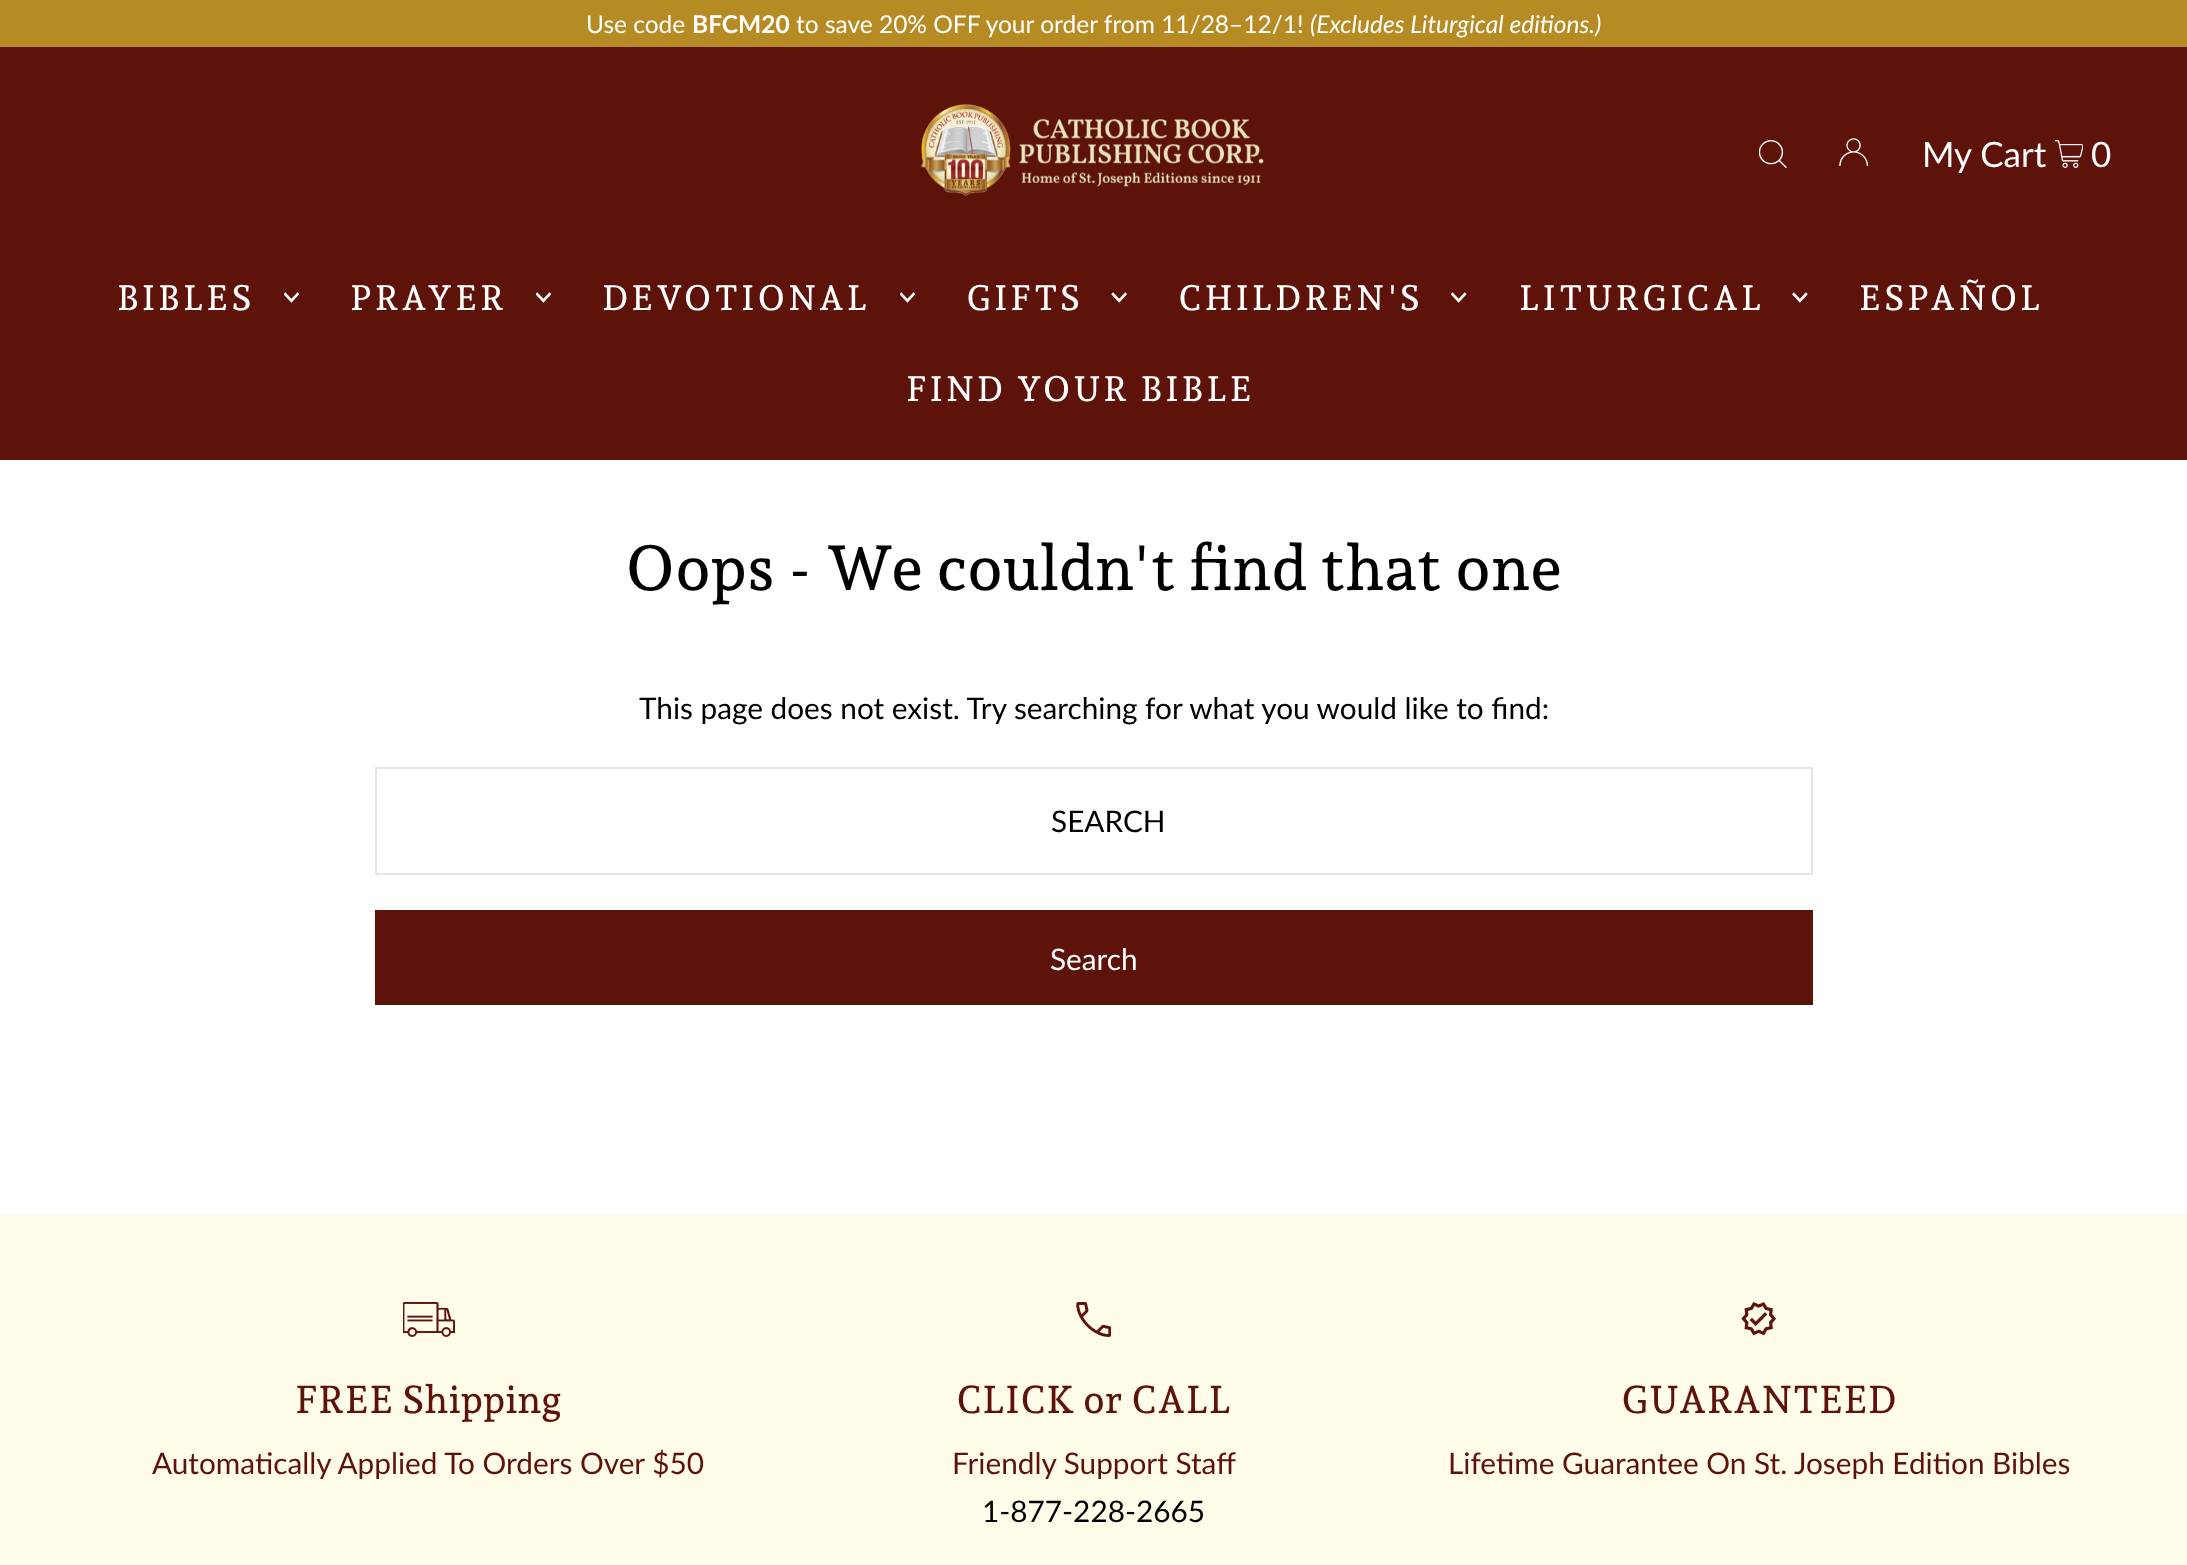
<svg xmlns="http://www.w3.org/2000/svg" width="2187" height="1565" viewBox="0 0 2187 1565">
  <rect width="100%" height="100%" fill="#fff"/>
  <path d="M0 0h2187v47H0z" fill="#b68b24"/>
  <path d="M0 47h2187v413H0z" fill="#5e130a"/>
  <image x="921" y="104" width="343" height="92" href="img/1.png"/>
  <image x="1759" y="140" width="28" height="28" href="img/2.png"/>
  <image x="1839" y="138" width="30" height="28" href="img/3.png"/>
  <image x="2055" y="140" width="28" height="28" href="img/4.png"/>
  <image x="284" y="292" width="15" height="11" href="img/5.png"/>
  <image x="536" y="292" width="15" height="11" href="img/5.png"/>
  <image x="900" y="292" width="15" height="11" href="img/5.png"/>
  <image x="1111" y="292" width="16" height="11" href="img/6.png"/>
  <image x="1451" y="292" width="16" height="11" href="img/7.png"/>
  <image x="1792" y="292" width="16" height="11" href="img/8.png"/>
  <path d="M376 768h1436v106H376z" fill="none" stroke="#e5e5e5" stroke-width="2"/>
  <path d="M375 910h1438v95H375z" fill="#5e130a"/>
  <path d="M0 1215h2187v350H0z" fill="#fffce9"/>
  <image x="403" y="1302" width="52" height="35" href="img/9.png"/>
  <image x="1076" y="1302" width="35" height="35" href="img/10.png"/>
  <image x="1741" y="1302" width="36" height="34" href="img/11.png"/>
  <text x="586" y="33" font-family="Lato" font-size="24.5" fill="#fff">Use code</text>
  <text x="692" y="33" font-family="Lato" font-size="24.5" font-weight="bold" fill="#fff">BFCM20</text>
  <text x="796" y="33" font-family="Lato" font-size="24.5" fill="#fff">to save 20% OFF your order from 11/28–12/1!</text>
  <text x="1310" y="33" font-family="Lato" font-size="24.5" font-style="italic" fill="#fff">(Excludes Liturgical editions.)</text>
  <g font-family="Lato" font-size="35" fill="#fff">
    <text x="1922" y="167">My Cart</text>
    <text x="2091" y="167">0</text>
  </g>
  <g font-family="Andada Pro" font-size="35" font-weight="500" letter-spacing="2.6" fill="#fff">
    <text x="117" y="310">BIBLES</text>
    <text x="350" y="310">PRAYER</text>
    <text x="602" y="310">DEVOTIONAL</text>
    <text x="966" y="310">GIFTS</text>
    <text x="1178" y="310">CHILDREN'S</text>
    <text x="1519" y="310">LITURGICAL</text>
    <text x="1859" y="310">ESPAÑOL</text>
    <text x="906" y="401">FIND YOUR BIBLE</text>
  </g>
  <text x="625" y="590" font-family="Andada Pro" font-size="63" font-weight="500" fill="#000">Oops - We couldn't find that one</text>
  <g font-family="Lato" font-size="29.75" fill="#000">
    <text x="639" y="719">This page does not exist. Try searching for what you would like to find:</text>
    <text x="1051" y="832">SEARCH</text>
  </g>
  <text x="1050" y="970" font-family="Lato" font-size="29.75" fill="#fff">Search</text>
  <text x="295" y="1413" font-family="Andada Pro" font-size="38.5" font-weight="500" fill="#5e130a">FREE Shipping</text>
  <text x="152" y="1474" font-family="Lato" font-size="29.75" fill="#5e130a">Automatically Applied To Orders Over $50</text>
  <text x="956" y="1413" font-family="Andada Pro" font-size="38.5" font-weight="500" fill="#5e130a">CLICK or CALL</text>
  <text x="952" y="1474" font-family="Lato" font-size="29.75" fill="#5e130a">Friendly Support Staff</text>
  <text x="982" y="1522" font-family="Lato" font-size="29.75" fill="#000">1-877-228-2665</text>
  <text x="1621" y="1413" font-family="Andada Pro" font-size="38.5" font-weight="500" fill="#5e130a">GUARANTEED</text>
  <text x="1448" y="1474" font-family="Lato" font-size="29.75" fill="#5e130a">Lifetime Guarantee On St. Joseph Edition Bibles</text>
</svg>
